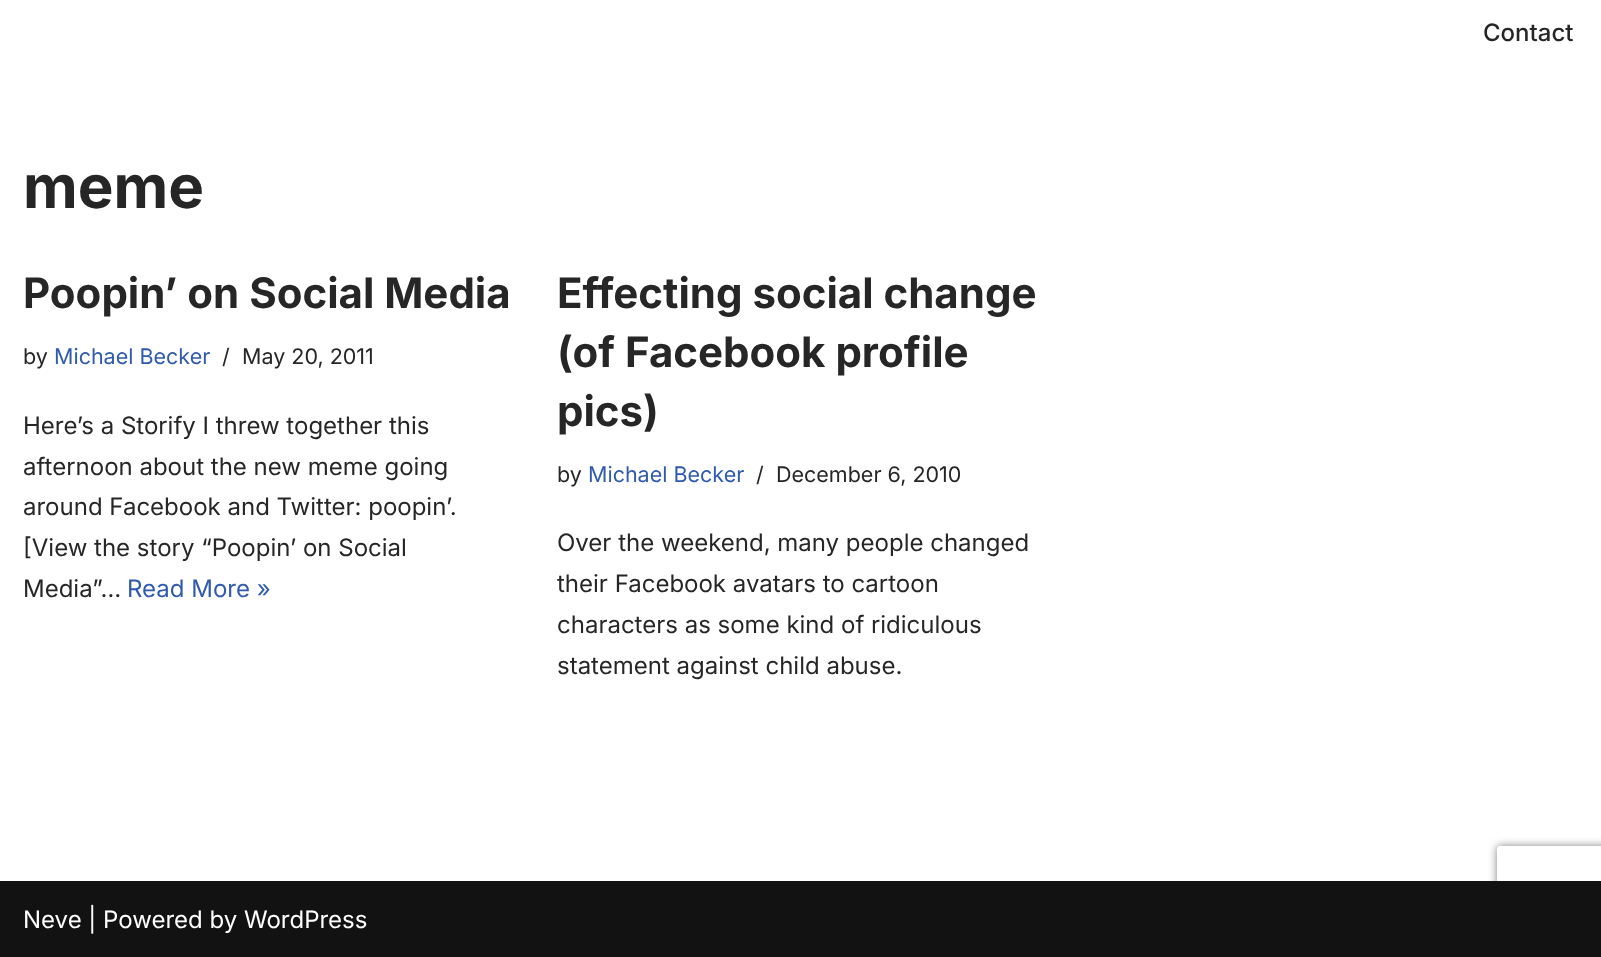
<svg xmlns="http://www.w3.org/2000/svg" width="1601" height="957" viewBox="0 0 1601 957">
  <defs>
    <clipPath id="clip1"><path d="M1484 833H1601V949H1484ZM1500 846H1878C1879.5 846 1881 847.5 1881 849V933C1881 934.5 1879.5 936 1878 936H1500C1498.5 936 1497 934.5 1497 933V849C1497 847.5 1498.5 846 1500 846Z" clip-rule="evenodd"/></clipPath>
  </defs>
  <rect width="100%" height="100%" fill="#fff"/>
  <g clip-path="url(#clip1)">
    <rect x="1497" y="846" width="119" height="90" rx="3" fill="#808080" filter="blur(4px)"/>
  </g>
  <path d="M0 881h1601v76H0z" fill="#121212"/>
  <text x="1483" y="41" font-family="Inter" font-size="24" font-weight="500" fill="#272626">Contact</text>
  <text x="23" y="208" font-family="Inter" font-size="60" font-weight="bold" fill="#272626">meme</text>
  <text x="23" y="308" font-family="Inter" font-size="42" font-weight="bold" fill="#272626">Poopin’ on Social Media</text>
  <text x="23" y="364" font-family="Inter" font-size="21.5" fill="#272626">by</text>
  <text x="54" y="364" font-family="Inter" font-size="21.5" fill="#2f5aae">Michael Becker</text>
  <g font-family="Inter" font-size="21.5" fill="#272626">
    <text x="222" y="364">/</text>
    <text x="242" y="364">May 20, 2011</text>
  </g>
  <g font-family="Inter" font-size="24" fill="#272626">
    <text x="23" y="434">Here’s a Storify I threw together this</text>
    <text x="23" y="475">afternoon about the new meme going</text>
    <text x="23" y="515">around Facebook and Twitter: poopin’.</text>
    <text x="23" y="556">[View the story “Poopin’ on Social</text>
    <text x="23" y="597">Media”…</text>
  </g>
  <text x="127" y="597" font-family="Inter" font-size="24" fill="#2f5aae">Read More »</text>
  <g font-family="Inter" font-size="42" font-weight="bold" fill="#272626">
    <text x="557" y="308">Effecting social change</text>
    <text x="557" y="367">(of Facebook profile</text>
    <text x="557" y="426">pics)</text>
  </g>
  <text x="557" y="482" font-family="Inter" font-size="21.5" fill="#272626">by</text>
  <text x="588" y="482" font-family="Inter" font-size="21.5" fill="#2f5aae">Michael Becker</text>
  <g font-family="Inter" font-size="21.5" fill="#272626">
    <text x="756" y="482">/</text>
    <text x="776" y="482">December 6, 2010</text>
  </g>
  <g font-family="Inter" font-size="24" fill="#272626">
    <text x="557" y="551">Over the weekend, many people changed</text>
    <text x="557" y="592">their Facebook avatars to cartoon</text>
    <text x="557" y="633">characters as some kind of ridiculous</text>
    <text x="557" y="674">statement against child abuse.</text>
  </g>
  <text x="23" y="928" font-family="Inter" font-size="24" fill="#fff">Neve | Powered by WordPress</text>
</svg>
